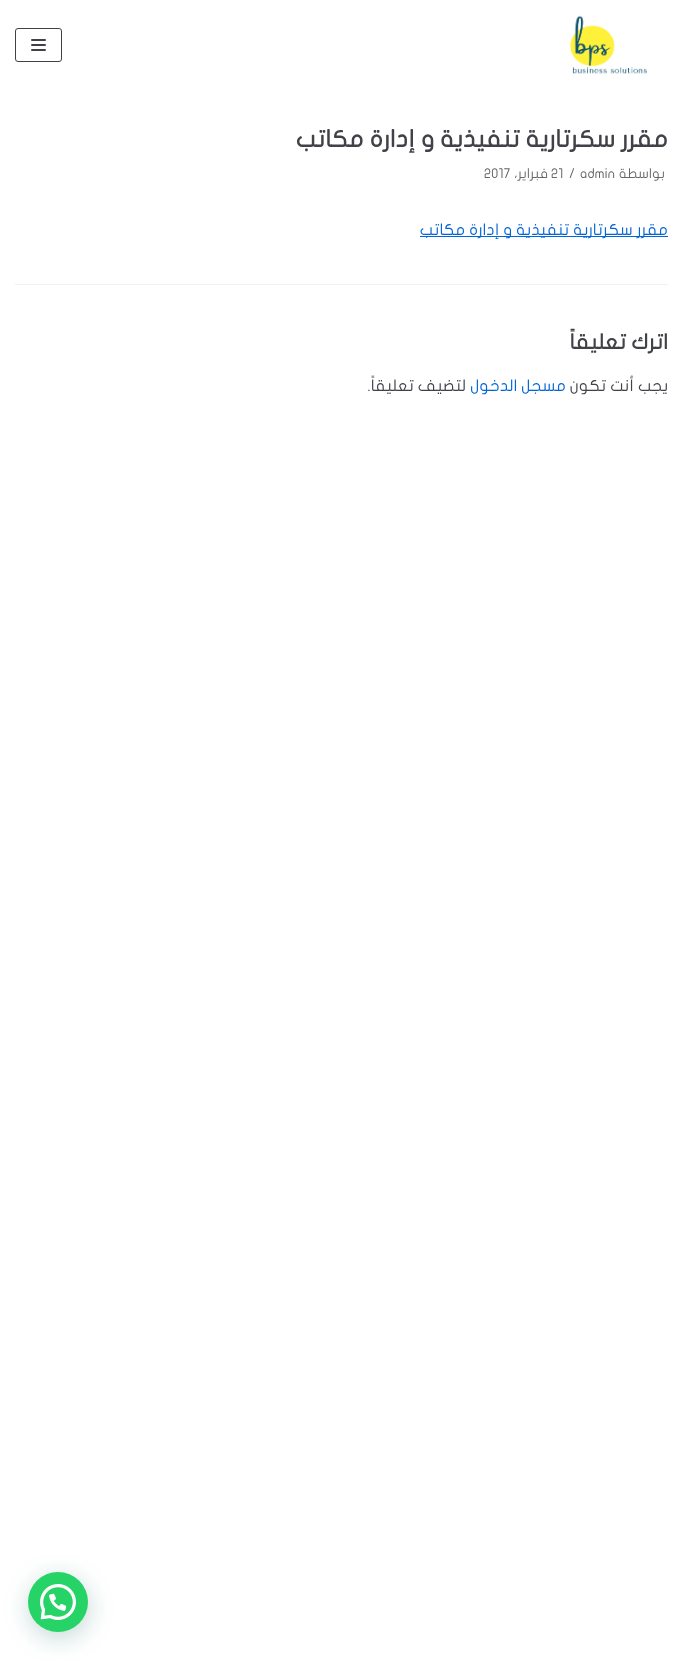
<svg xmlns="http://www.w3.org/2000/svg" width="683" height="1660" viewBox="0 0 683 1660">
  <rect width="100%" height="100%" fill="#fff"/>
  <image x="570" y="15" width="77" height="59" href="img/1.png"/>
  <rect x="15.5" y="28.5" width="46" height="33" rx="2.5" fill="none" stroke="#404248"/>
  <rect x="31" y="39" width="15" height="2" rx="1" fill="#404248"/>
  <rect x="31" y="44" width="15" height="2" rx="1" fill="#404248"/>
  <rect x="31" y="49" width="15" height="2" rx="1" fill="#404248"/>
  <path d="M420 236h248v1H420z" fill="#0366d6"/>
  <path d="M15 284h653v1H15z" fill="#f0f0f0"/>
  <rect x="29" y="1578" width="60" height="60" rx="30" fill="#075e543d" filter="blur(12px)"/>
  <circle cx="58" cy="1602" r="30" fill="#25d366"/>
  <image x="40" y="1584" width="36" height="36" href="img/2.png"/>
  <text x="668" y="147" font-family="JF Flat" font-size="24" font-weight="bold" direction="rtl" fill="#404248">مقرر سكرتارية تنفيذية و إدارة مكاتب</text>
  <text x="665" y="178" font-family="JF Flat" font-size="13.5" direction="rtl" fill="#676767">بواسطة</text>
  <g font-family="JF Flat" font-size="13.5" fill="#676767">
    <text x="580" y="178">admin</text>
    <text x="569" y="178">/</text>
    <text x="551" y="178">21</text>
  </g>
  <text x="548" y="178" font-family="JF Flat" font-size="13.5" direction="rtl" fill="#676767">فبراير،</text>
  <text x="484" y="178" font-family="JF Flat" font-size="13.5" fill="#676767">2017</text>
  <text x="668" y="235" font-family="JF Flat" font-size="16" direction="rtl" fill="#0366d6">مقرر سكرتارية تنفيذية و إدارة مكاتب</text>
  <text x="668" y="349" font-family="JF Flat" font-size="21" font-weight="bold" direction="rtl" fill="#404248">اترك تعليقاً</text>
  <text x="668" y="391" font-family="JF Flat" font-size="16" direction="rtl" fill="#404248">يجب أنت تكون</text>
  <text x="566" y="391" font-family="JF Flat" font-size="16" direction="rtl" fill="#0366d6">مسجل الدخول</text>
  <text x="466" y="391" font-family="JF Flat" font-size="16" direction="rtl" fill="#404248">لتضيف تعليقاً.</text>
</svg>
